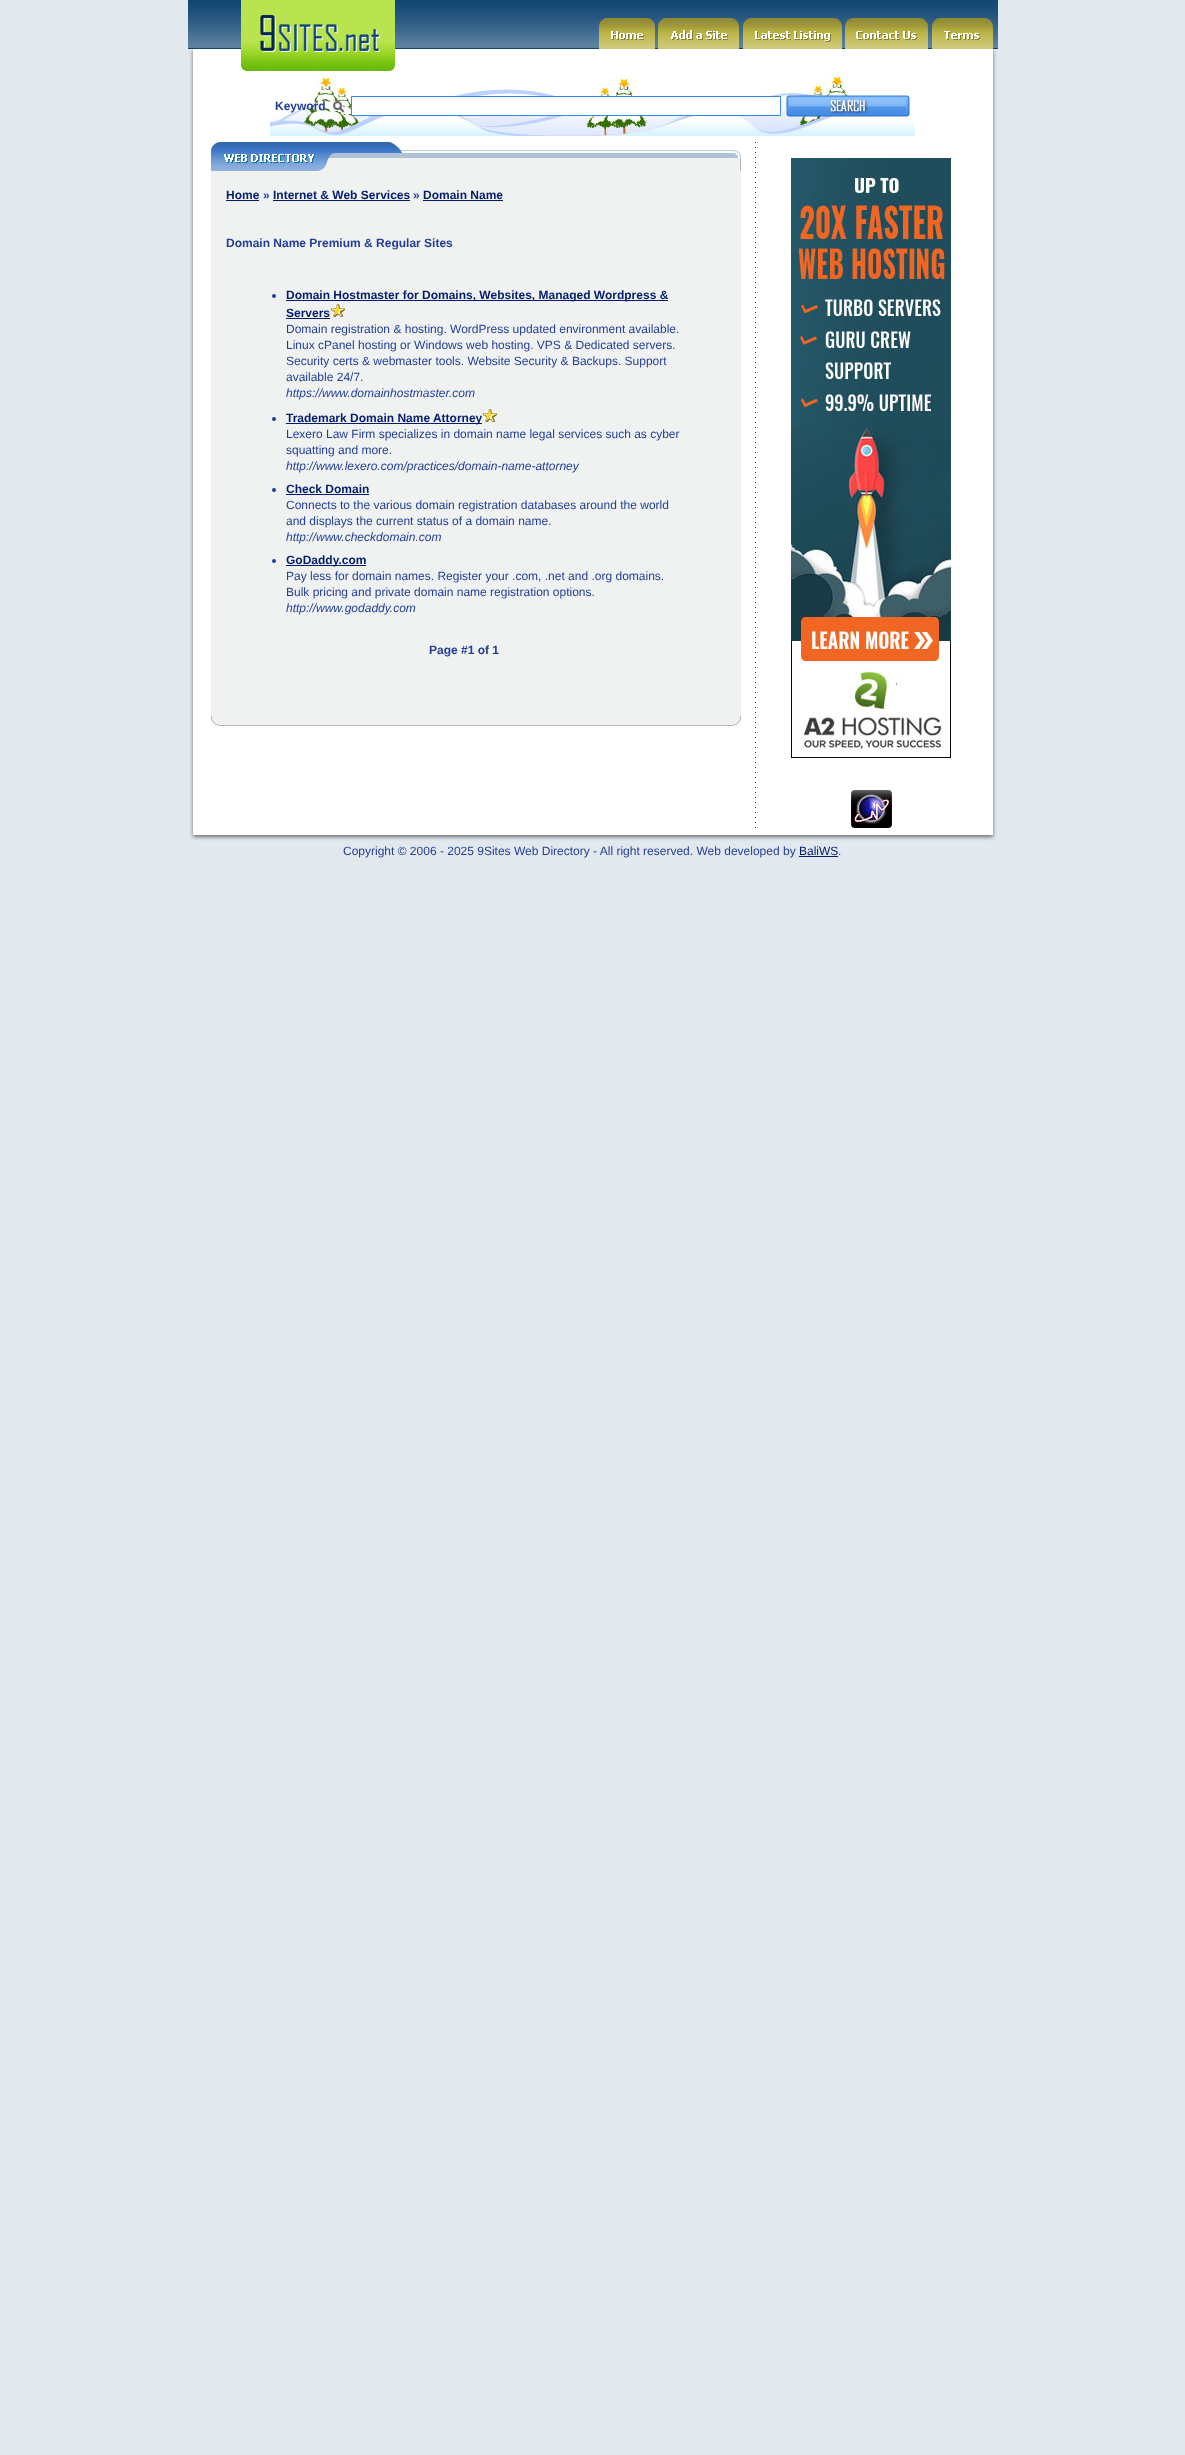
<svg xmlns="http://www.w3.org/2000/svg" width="1185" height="2455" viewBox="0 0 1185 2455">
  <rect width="100%" height="100%" fill="#e2e9ee"/>
  <image x="188" y="0" width="810" height="71" href="img/1.png"/>
  <image x="241" y="0" width="154" height="71" href="img/2.png"/>
  <image x="599" y="18" width="56" height="31" href="img/3.png"/>
  <image x="658" y="18" width="81" height="31" href="img/4.png"/>
  <image x="743" y="18" width="99" height="31" href="img/5.png"/>
  <image x="845" y="18" width="83" height="31" href="img/6.png"/>
  <image x="932" y="18" width="61" height="31" href="img/7.png"/>
  <image x="189" y="71" width="808" height="70" href="img/8.png"/>
  <image x="270" y="76" width="645" height="60" href="img/9.png"/>
  <image x="333" y="101" width="12" height="13" href="img/10.png"/>
  <path d="M351.5 96.5h429v19H351.5z" fill="#fff" stroke="#3c87e1"/>
  <image x="786" y="95" width="124" height="22" href="img/11.png"/>
  <image x="189" y="141" width="808" height="687" href="img/12.png"/>
  <image x="211" y="142" width="530" height="29" href="img/13.png"/>
  <path d="M211 171h530v545H211z" fill="#f0f2f2"/>
  <path d="M226 200h33v1H226z" fill="#031c6c"/>
  <path d="M273 200h137v1H273z" fill="#031c6c"/>
  <path d="M423 200h80v1H423z" fill="#031c6c"/>
  <circle cx="274" cy="296" r="2" fill="#223d97"/>
  <path d="M286 300h382v1H286z" fill="#031c6c"/>
  <path d="M286 318h44v1H286z" fill="#031c6c"/>
  <image x="330" y="303" width="15" height="14" href="img/14.png"/>
  <circle cx="274" cy="419" r="2" fill="#223d97"/>
  <path d="M286 423h196v1H286z" fill="#031c6c"/>
  <circle cx="274" cy="490" r="2" fill="#223d97"/>
  <path d="M286 494h83v1H286z" fill="#031c6c"/>
  <circle cx="274" cy="561" r="2" fill="#223d97"/>
  <path d="M286 565h80v1H286z" fill="#031c6c"/>
  <image x="211" y="716" width="530" height="10" href="img/16.png"/>
  <image x="755" y="142" width="1" height="686" href="img/17.png"/>
  <image x="791" y="158" width="160" height="600" href="img/18.png"/>
  <image x="851" y="790" width="41" height="38" href="img/19.png"/>
  <image x="189" y="828" width="808" height="13" href="img/20.png"/>
  <path d="M799 856h39v1H799z" fill="#031c6c"/>
  <text x="275" y="110" font-family="Liberation Sans" font-size="12" font-weight="bold" fill="#223d97">Keyword</text>
  <text x="226" y="199" font-family="Liberation Sans" font-size="12" font-weight="bold" fill="#031c6c">Home</text>
  <text x="263" y="199" font-family="Liberation Sans" font-size="12" font-weight="bold" fill="#223d97">»</text>
  <text x="273" y="199" font-family="Liberation Sans" font-size="12" font-weight="bold" fill="#031c6c">Internet &amp; Web Services</text>
  <text x="413" y="199" font-family="Liberation Sans" font-size="12" font-weight="bold" fill="#223d97">»</text>
  <text x="423" y="199" font-family="Liberation Sans" font-size="12" font-weight="bold" fill="#031c6c">Domain Name</text>
  <text x="226" y="247" font-family="Liberation Sans" font-size="12" font-weight="bold" fill="#223d97">Domain Name Premium &amp; Regular Sites</text>
  <g font-family="Liberation Sans" font-size="12" font-weight="bold" fill="#031c6c">
    <text x="286" y="299">Domain Hostmaster for Domains, Websites, Managed Wordpress &amp;</text>
    <text x="286" y="317">Servers</text>
  </g>
  <g font-family="Liberation Sans" font-size="12" fill="#223d97">
    <text x="286" y="333">Domain registration &amp; hosting. WordPress updated environment available.</text>
    <text x="286" y="349">Linux cPanel hosting or Windows web hosting. VPS &amp; Dedicated servers.</text>
    <text x="286" y="365">Security certs &amp; webmaster tools. Website Security &amp; Backups. Support</text>
    <text x="286" y="381">available 24/7.</text>
  </g>
  <text x="286" y="397" font-family="Liberation Sans" font-size="12" font-style="italic" fill="#223d97">https://www.domainhostmaster.com</text>
  <text x="286" y="422" font-family="Liberation Sans" font-size="12" font-weight="bold" fill="#031c6c">Trademark Domain Name Attorney</text>
  <image x="482" y="408" width="15" height="14" href="img/15.png"/>
  <g font-family="Liberation Sans" font-size="12" fill="#223d97">
    <text x="286" y="438">Lexero Law Firm specializes in domain name legal services such as cyber</text>
    <text x="286" y="454">squatting and more.</text>
  </g>
  <text x="286" y="470" font-family="Liberation Sans" font-size="12" font-style="italic" fill="#223d97">http://www.lexero.com/practices/domain-name-attorney</text>
  <text x="286" y="493" font-family="Liberation Sans" font-size="12" font-weight="bold" fill="#031c6c">Check Domain</text>
  <g font-family="Liberation Sans" font-size="12" fill="#223d97">
    <text x="286" y="509">Connects to the various domain registration databases around the world</text>
    <text x="286" y="525">and displays the current status of a domain name.</text>
  </g>
  <text x="286" y="541" font-family="Liberation Sans" font-size="12" font-style="italic" fill="#223d97">http://www.checkdomain.com</text>
  <text x="286" y="564" font-family="Liberation Sans" font-size="12" font-weight="bold" fill="#031c6c">GoDaddy.com</text>
  <g font-family="Liberation Sans" font-size="12" fill="#223d97">
    <text x="286" y="580">Pay less for domain names. Register your .com, .net and .org domains.</text>
    <text x="286" y="596">Bulk pricing and private domain name registration options.</text>
  </g>
  <text x="286" y="612" font-family="Liberation Sans" font-size="12" font-style="italic" fill="#223d97">http://www.godaddy.com</text>
  <text x="429" y="654" font-family="Liberation Sans" font-size="12" font-weight="bold" fill="#223d97">Page #1 of 1</text>
  <text x="343" y="855" font-family="Liberation Sans" font-size="12" fill="#223d97">Copyright © 2006 - 2025 9Sites Web Directory - All right reserved. Web developed by</text>
  <text x="799" y="855" font-family="Liberation Sans" font-size="12" fill="#031c6c">BaliWS</text>
  <text x="838" y="855" font-family="Liberation Sans" font-size="12" fill="#223d97">.</text>
</svg>
